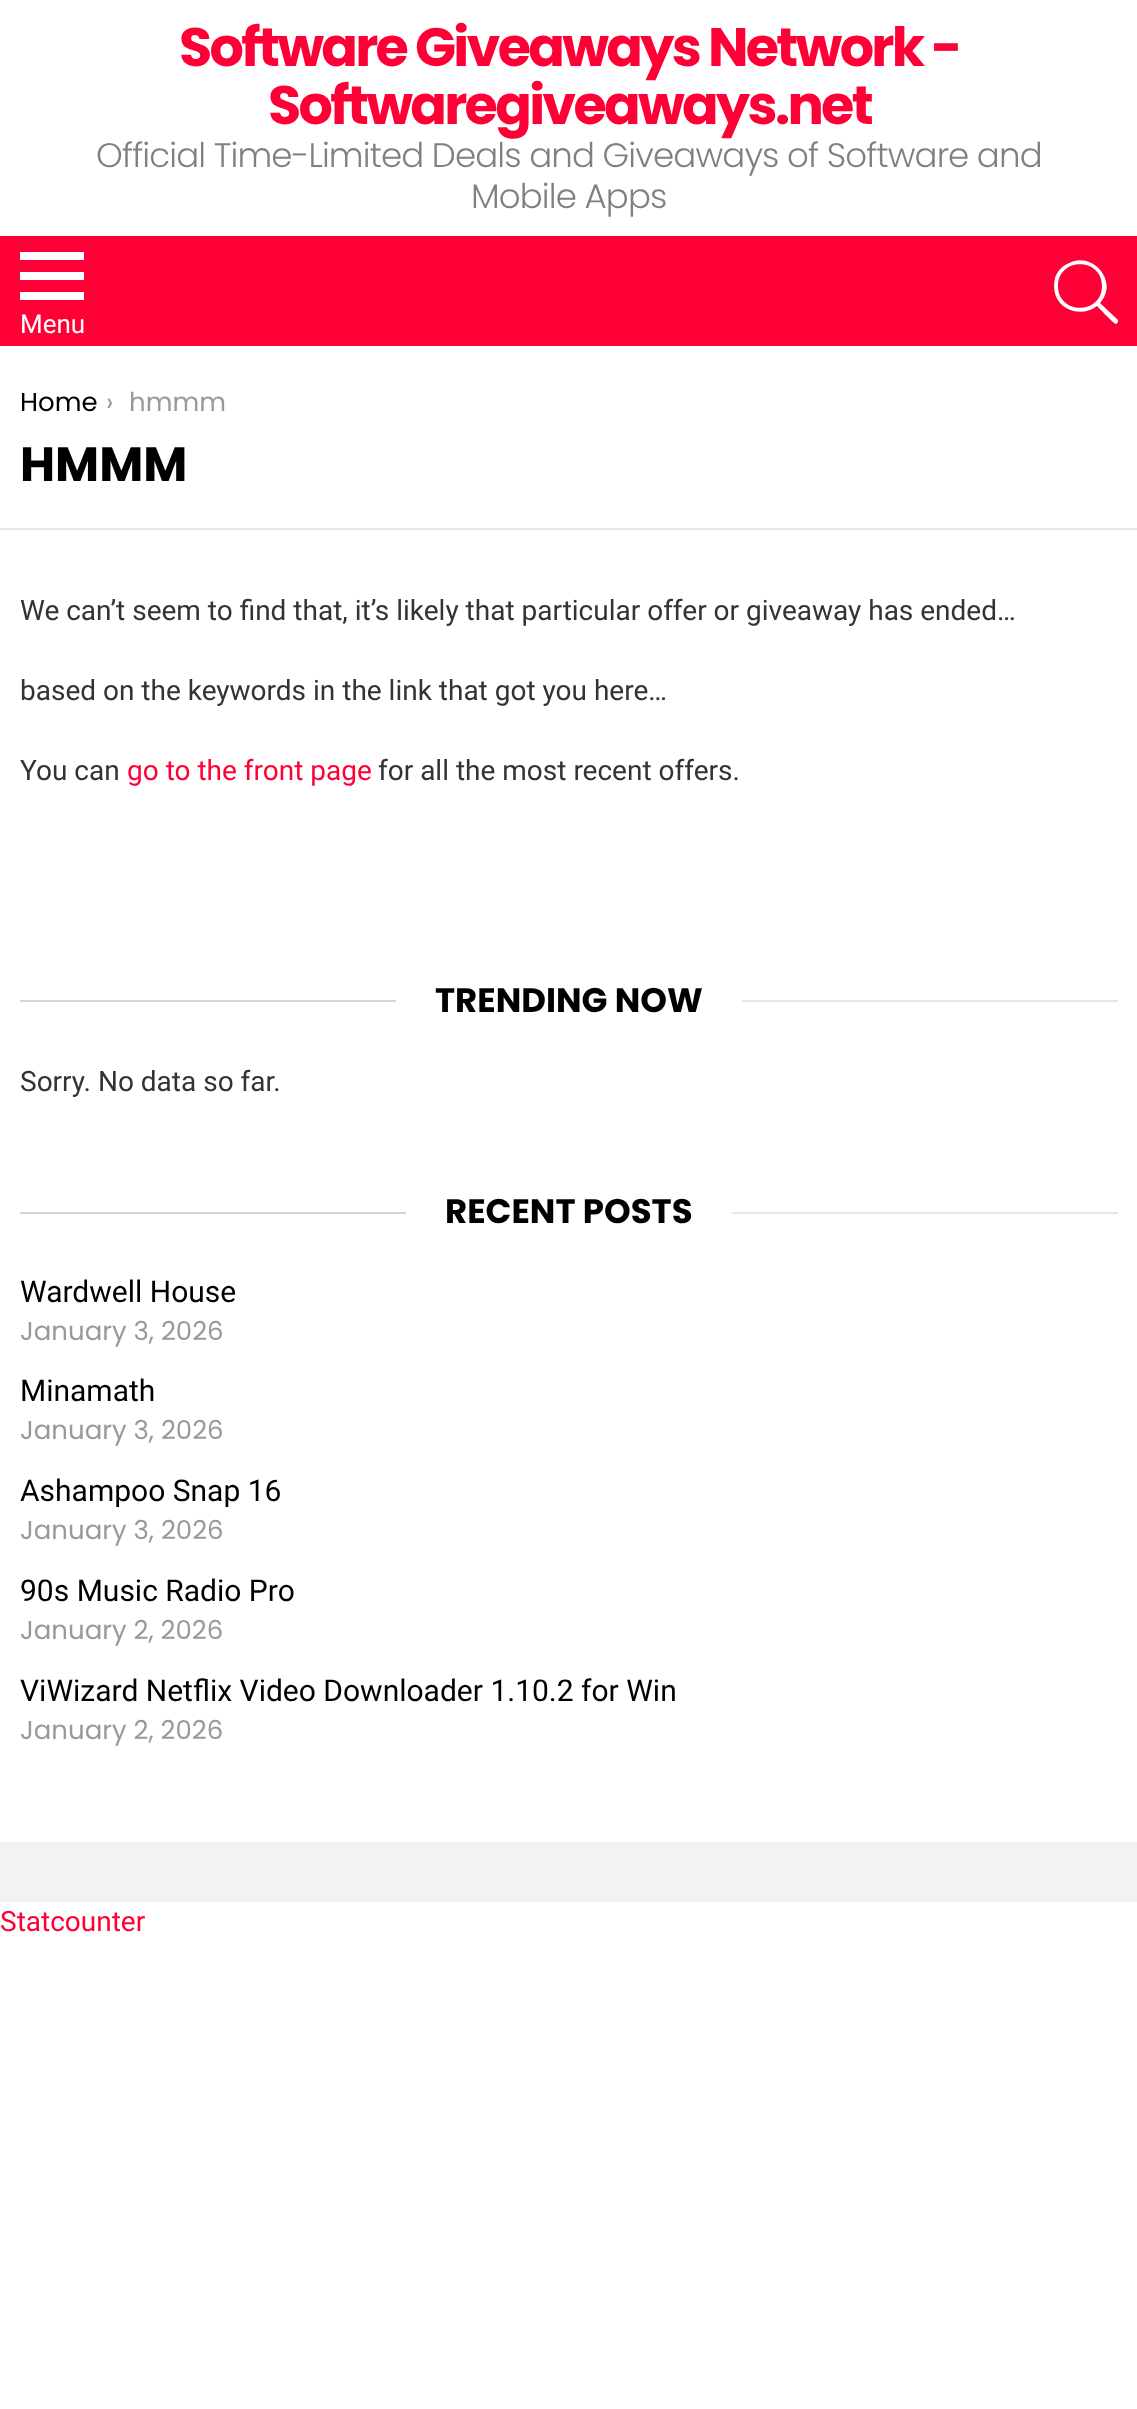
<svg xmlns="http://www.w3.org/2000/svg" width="1137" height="2409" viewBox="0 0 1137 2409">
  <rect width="100%" height="100%" fill="#fff"/>
  <path d="M0 236h1137v110H0z" fill="#ff0036"/>
  <path d="M20 252H84V260H20ZM20 272H84V280H20ZM20 292H84V300H20Z" fill="#fff"/>
  <path d="M1118 320L1100 303C1120 281 1091 249 1067 264C1061 267 1057 272 1055 278C1053 287 1054 296 1060 303C1069 313 1086 315 1097 306C1099 308 1114 324 1116 324C1118 323 1118 322 1118 320ZM1058 286C1058 257 1102 257 1102 286C1102 315 1058 315 1058 286Z" fill="#fff"/>
  <path d="M0 528h1137v2H0z" fill="#e6e6e6"/>
  <path d="M20 1000h376v2H20z" fill="#d4d4d4"/>
  <path d="M742 1000h376v2H742z" fill="#e6e6e6"/>
  <path d="M20 1212h386v2H20z" fill="#d4d4d4"/>
  <path d="M732 1212h386v2H732z" fill="#e6e6e6"/>
  <path d="M0 1842h1137v60H0z" fill="#f2f2f2"/>
  <g font-family="Poppins" font-size="54" font-weight="bold" letter-spacing="-2.7" fill="#ff0036">
    <text x="179" y="66">Software Giveaways Network -</text>
    <text x="268" y="124">Softwaregiveaways.net</text>
  </g>
  <g font-family="Poppins" font-size="34" font-weight="300" letter-spacing="-0.85" fill="#808080">
    <text x="96" y="167">Official Time-Limited Deals and Giveaways of Software and</text>
    <text x="471" y="208">Mobile Apps</text>
  </g>
  <text x="20" y="333" font-family="Roboto" font-size="26" fill="#fff">Menu</text>
  <text x="20" y="411" font-family="Poppins" font-size="26" fill="#000">Home</text>
  <g font-family="Poppins" font-size="26" fill="#999">
    <text x="106" y="411">›</text>
    <text x="129" y="411">hmmm</text>
  </g>
  <text x="20" y="481" font-family="Poppins" font-size="48" font-weight="bold" fill="#000">HMMM</text>
  <g font-family="Roboto" font-size="28" fill="#333">
    <text x="20" y="620">We can’t seem to find that, it’s likely that particular offer or giveaway has ended…</text>
    <text x="20" y="700">based on the keywords in the link that got you here…</text>
    <text x="20" y="780">You can</text>
  </g>
  <text x="127" y="780" font-family="Roboto" font-size="28" fill="#ff0036">go to the front page</text>
  <text x="378" y="780" font-family="Roboto" font-size="28" fill="#333">for all the most recent offers.</text>
  <text x="435" y="1012" font-family="Poppins" font-size="34" font-weight="bold" fill="#000">TRENDING NOW</text>
  <text x="20" y="1091" font-family="Roboto" font-size="28" fill="#333">Sorry. No data so far.</text>
  <text x="445" y="1223" font-family="Poppins" font-size="34" font-weight="bold" fill="#000">RECENT POSTS</text>
  <text x="20" y="1302" font-family="Roboto" font-size="30" fill="#000">Wardwell House</text>
  <text x="20" y="1340" font-family="Poppins" font-size="26" fill="#999">January 3, 2026</text>
  <text x="20" y="1401" font-family="Roboto" font-size="30" fill="#000">Minamath</text>
  <text x="20" y="1439" font-family="Poppins" font-size="26" fill="#999">January 3, 2026</text>
  <text x="20" y="1501" font-family="Roboto" font-size="30" fill="#000">Ashampoo Snap 16</text>
  <text x="20" y="1539" font-family="Poppins" font-size="26" fill="#999">January 3, 2026</text>
  <text x="20" y="1601" font-family="Roboto" font-size="30" fill="#000">90s Music Radio Pro</text>
  <text x="20" y="1639" font-family="Poppins" font-size="26" fill="#999">January 2, 2026</text>
  <text x="20" y="1701" font-family="Roboto" font-size="30" fill="#000">ViWizard Netflix Video Downloader 1.10.2 for Win</text>
  <text x="20" y="1739" font-family="Poppins" font-size="26" fill="#999">January 2, 2026</text>
  <text x="0" y="1931" font-family="Roboto" font-size="28" fill="#ff0036">Statcounter</text>
</svg>
